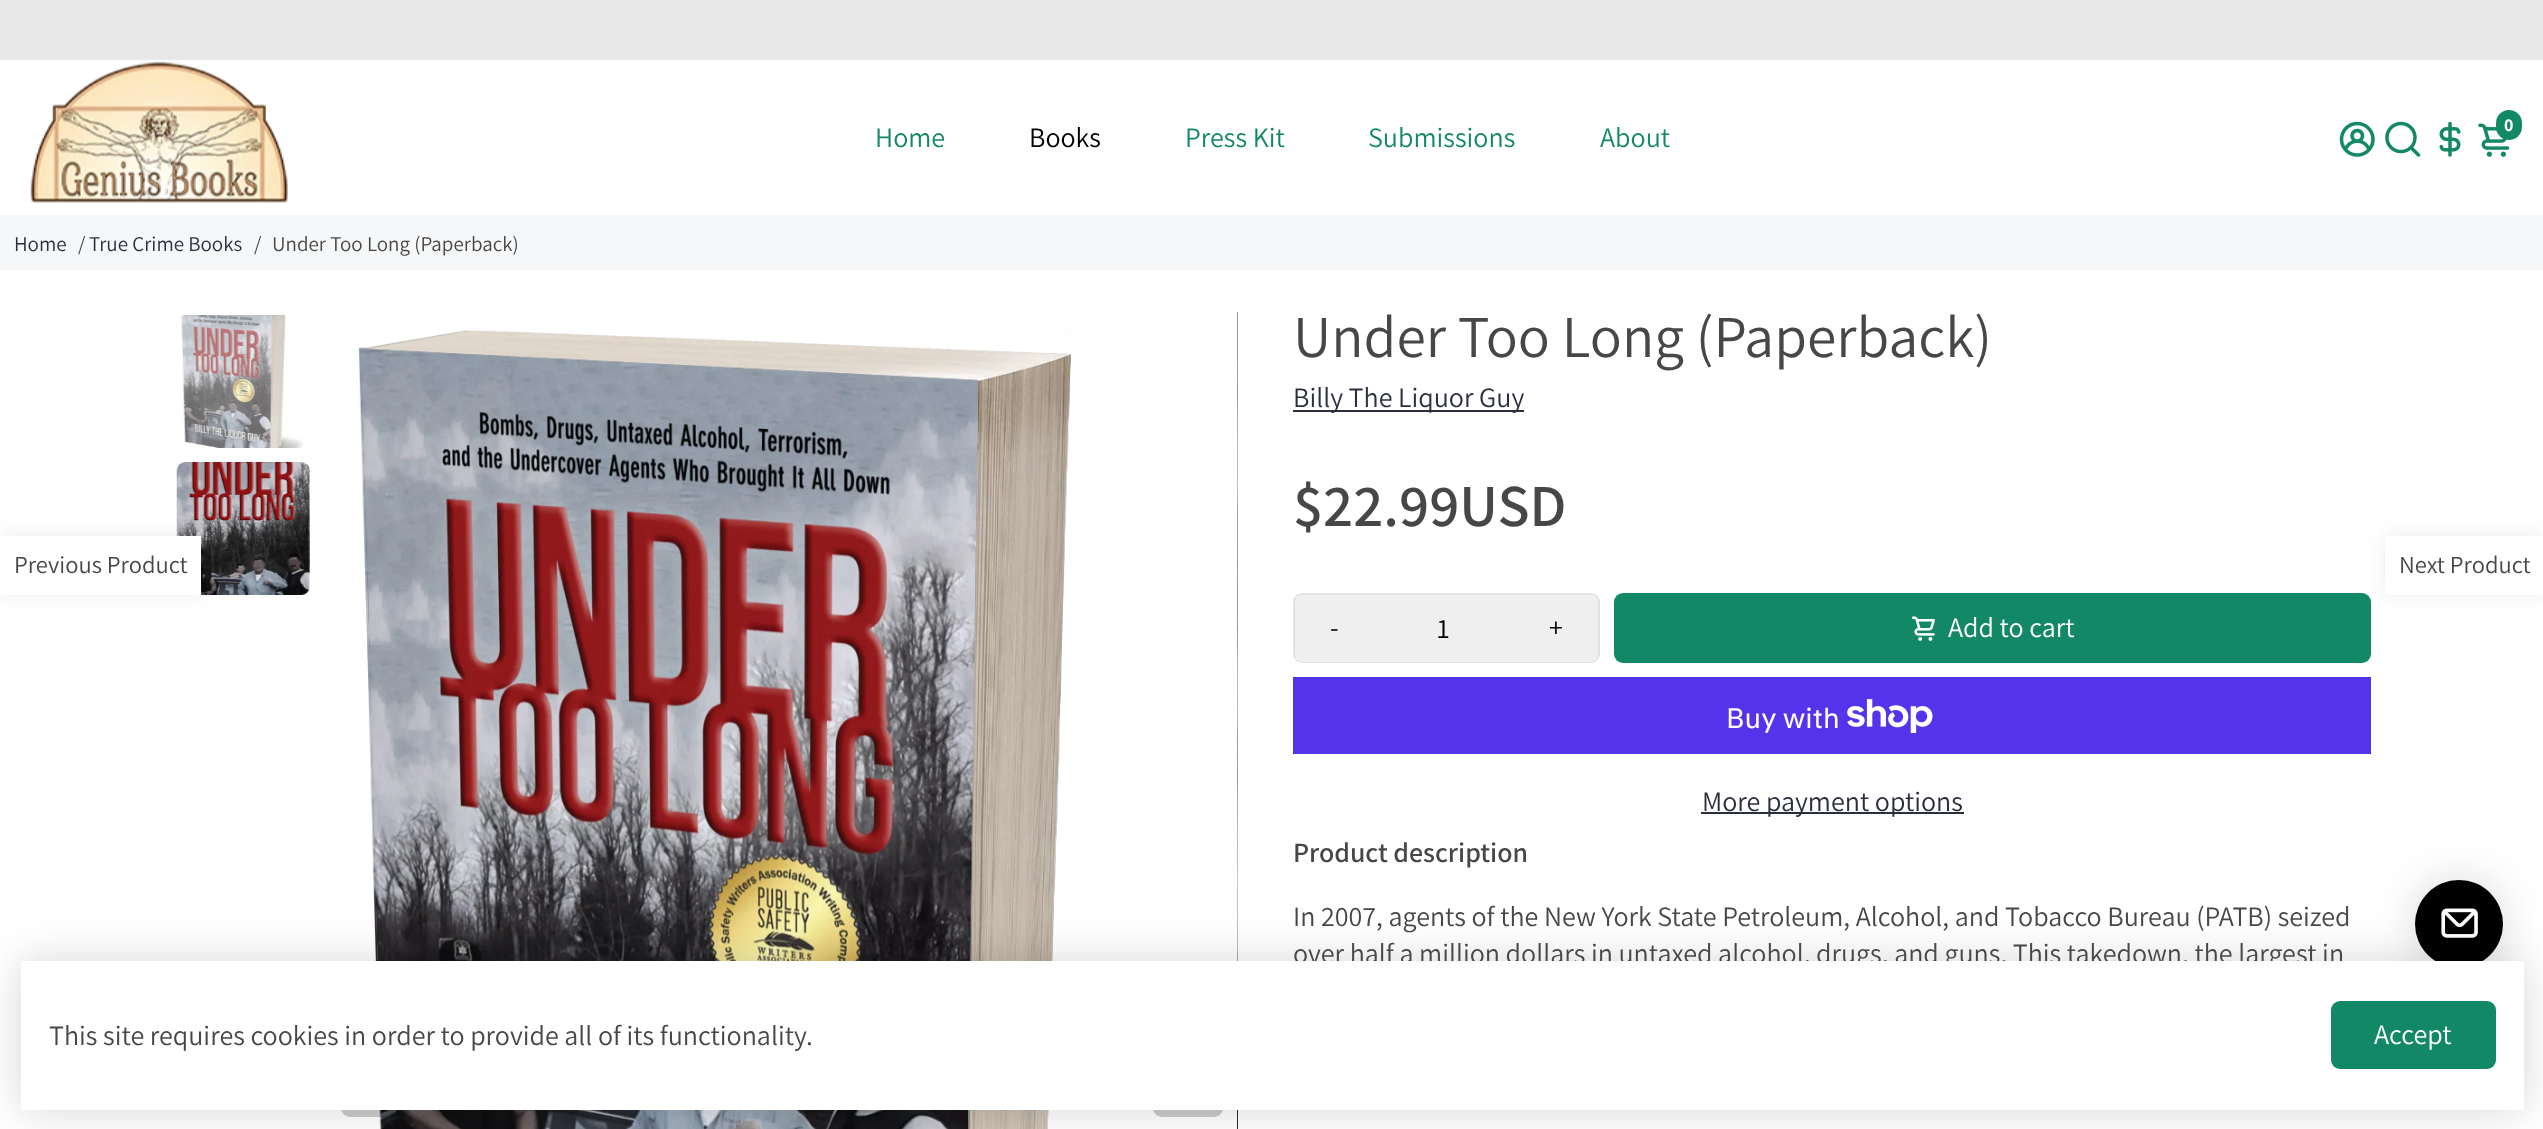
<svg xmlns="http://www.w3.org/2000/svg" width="2543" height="1129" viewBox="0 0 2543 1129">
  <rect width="100%" height="100%" fill="#fff"/>
  <path d="M0 0h2543v60H0z" fill="#e8e8e8"/>
  <image x="30" y="61" width="258" height="142" href="img/1.png"/>
  <image x="2339" y="121" width="36" height="36" href="img/2.png"/>
  <image x="2385" y="121" width="36" height="36" href="img/3.png"/>
  <image x="2439" y="121" width="22" height="36" href="img/4.png"/>
  <image x="2478" y="123" width="32" height="34" href="img/5.png"/>
  <rect x="2496" y="110" width="26" height="30" rx="13" fill="#138867"/>
  <path d="M0 215h2543v55H0z" fill="#f6f7f8"/>
  <image x="176" y="462" width="134" height="133" href="img/7.png"/>
  <path d="M0 536h201v59H0z" fill="#00000014" filter="blur(9px)"/>
  <path d="M0 536h201v59H0z" fill="#fff"/>
  <image x="181" y="315" width="122" height="133" href="img/6.png"/>
  <image x="358" y="330" width="713" height="799" href="img/8.png"/>
  <image x="1237" y="312" width="1" height="817" href="img/9.png"/>
  <rect x="341" y="1047" width="70" height="70" rx="9" fill="#00000033"/>
  <rect x="1153" y="1047" width="70" height="70" rx="9" fill="#ccc"/>
  <path d="M1293 410h231v2H1293z" fill="#2b2f3d"/>
  <rect x="1294" y="594" width="305" height="68" rx="8" fill="none" stroke="#e2e2e2" stroke-width="2"/>
  <path d="M1302 595H1374V662H1302C1298 662 1295 659 1295 655V602C1295 598 1298 595 1302 595Z" fill="#efefef"/>
  <path d="M1374 595h140v67H1374z" fill="#efefef"/>
  <path d="M1514 595H1591C1595 595 1598 598 1598 602V655C1598 659 1595 662 1591 662H1514Z" fill="#efefef"/>
  <rect x="1614" y="593" width="757" height="70" rx="9" fill="#138867"/>
  <image x="1912" y="616" width="23" height="25" href="img/10.png"/>
  <path d="M1293 677h1078v77H1293z" fill="#5433eb"/>
  <image x="1847" y="699" width="86" height="34" href="img/11.png"/>
  <path d="M1701 812h263v2H1701z" fill="#2b2f3d"/>
  <path d="M2385 536h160v59H2385z" fill="#00000014" filter="blur(9px)"/>
  <path d="M2385 536h158v59H2385z" fill="#fff"/>
  <rect x="2415" y="880" width="88" height="88" rx="44" fill="#00000026" filter="blur(22px)"/>
  <circle cx="2459" cy="924" r="44" fill="#000"/>
  <image x="2441" y="908" width="37" height="30" href="img/12.png"/>
  <path d="M21 961h2503v149H21z" fill="#00000029" filter="blur(21px)"/>
  <text x="2504" y="131" font-family="Assistant" font-size="18" font-weight="bold" fill="#fff">0</text>
  <text x="875" y="147" font-family="Assistant" font-size="28" fill="#138867">Home</text>
  <text x="1029" y="147" font-family="Assistant" font-size="28" fill="#000">Books</text>
  <g font-family="Assistant" font-size="28" fill="#138867">
    <text x="1185" y="147">Press Kit</text>
    <text x="1368" y="147">Submissions</text>
    <text x="1600" y="147">About</text>
  </g>
  <text x="14" y="251" font-family="Assistant" font-size="21" fill="#2b2f3d">Home</text>
  <text x="78" y="251" font-family="Assistant" font-size="21" fill="#474747">/</text>
  <text x="89" y="251" font-family="Assistant" font-size="21" fill="#2b2f3d">True Crime Books</text>
  <g font-family="Assistant" font-size="21" fill="#474747">
    <text x="254" y="251">/</text>
    <text x="272" y="251">Under Too Long (Paperback)</text>
  </g>
  <text x="14" y="573" font-family="Assistant" font-size="24.5" fill="#474747">Previous Product</text>
  <text x="1293" y="357" font-family="Assistant" font-size="59.5" fill="#474747">Under Too Long (Paperback)</text>
  <text x="1293" y="407" font-family="Assistant" font-size="28" fill="#2b2f3d">Billy The Liquor Guy</text>
  <text x="1293" y="526" font-family="Assistant" font-size="59.5" font-weight="600" fill="#474747">$22.99USD</text>
  <g font-family="Assistant" font-size="28" fill="#000">
    <text x="1330" y="637">-</text>
    <text x="1437" y="638">1</text>
    <text x="1549" y="637">+</text>
  </g>
  <text x="1948" y="637" font-family="Assistant" font-size="28" fill="#fff">Add to cart</text>
  <text x="1726" y="728" font-family="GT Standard" font-size="28" fill="#fff">Buy with</text>
  <text x="1702" y="811" font-family="Assistant" font-size="28" fill="#2b2f3d">More payment options</text>
  <text x="1293" y="862" font-family="Assistant" font-size="28" font-weight="600" fill="#474747">Product description</text>
  <g font-family="Assistant" font-size="28" fill="#474747">
    <text x="1293" y="926">In 2007, agents of the New York State Petroleum, Alcohol, and Tobacco Bureau (PATB) seized</text>
    <text x="1293" y="963">over half a million dollars in untaxed alcohol, drugs, and guns. This takedown, the largest in</text>
  </g>
  <text x="2399" y="573" font-family="Assistant" font-size="24.5" fill="#474747">Next Product</text>
  <path d="M21 961h2503v149H21z" fill="#fff"/>
  <text x="49" y="1045" font-family="Assistant" font-size="28" fill="#474747">This site requires cookies in order to provide all of its functionality.</text>
  <rect x="2331" y="1001" width="165" height="68" rx="9" fill="#138867"/>
  <text x="2374" y="1044" font-family="Assistant" font-size="28" fill="#fff">Accept</text>
</svg>
